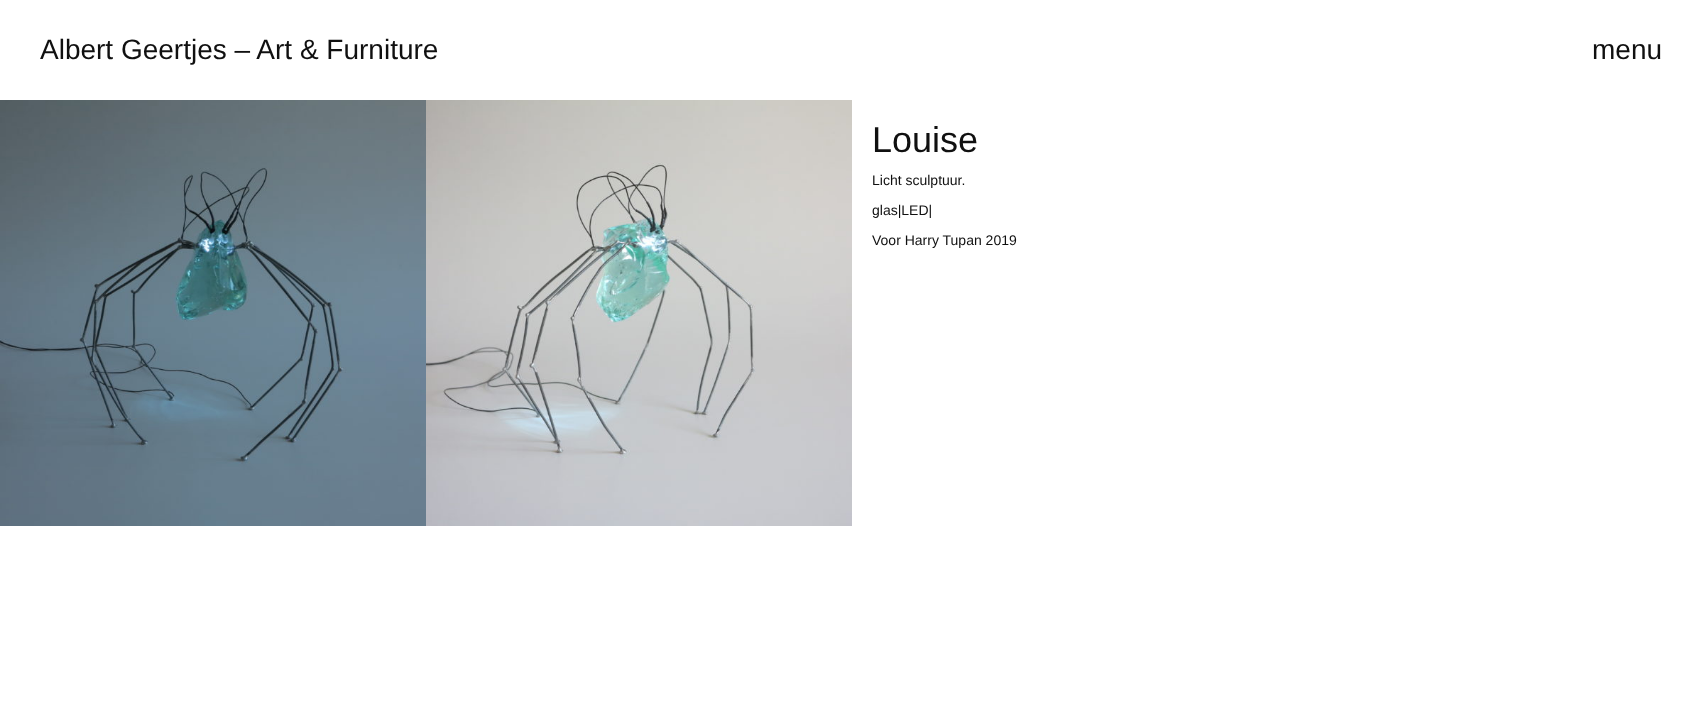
<svg xmlns="http://www.w3.org/2000/svg" width="1703" height="716" viewBox="0 0 1703 716">
  <rect width="100%" height="100%" fill="#fff"/>
  <image x="0" y="100" width="426" height="426" href="img/1.png"/>
  <image x="426" y="100" width="426" height="426" href="img/2.png"/>
  <g font-family="Liberation Sans" font-size="28" fill="#101010">
    <text x="40" y="59">Albert Geertjes – Art &amp; Furniture</text>
    <text x="1592" y="59">menu</text>
  </g>
  <text x="872" y="152" font-family="Liberation Sans" font-size="36" fill="#101010">Louise</text>
  <g font-family="Liberation Sans" font-size="14" fill="#101010">
    <text x="872" y="185">Licht sculptuur.</text>
    <text x="872" y="215">glas|LED|</text>
    <text x="872" y="245">Voor Harry Tupan 2019</text>
  </g>
</svg>
